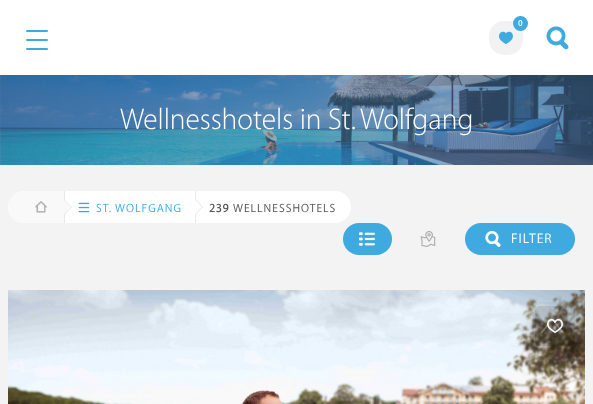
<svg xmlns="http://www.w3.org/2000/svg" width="593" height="404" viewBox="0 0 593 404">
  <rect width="100%" height="100%" fill="#f3f3f3"/>
  <path d="M0 0h593v75H0z" fill="#fff"/>
  <rect x="489" y="21" width="34" height="34" rx="15" fill="#f2f2f2"/>
  <circle cx="520.5" cy="23.5" r="7.5" fill="#3eaadf"/>
  <image x="499" y="31" width="14" height="13" href="img/1.png"/>
  <image x="546" y="26" width="23" height="24" href="img/2.png"/>
  <rect x="26" y="30" width="22" height="2" rx="1" fill="#3eaadf"/>
  <rect x="26" y="39" width="22" height="2" rx="1" fill="#3eaadf"/>
  <rect x="26" y="48" width="22" height="2" rx="1" fill="#3eaadf"/>
  <image x="0" y="75" width="593" height="90" href="img/3.png"/>
  <rect x="8" y="191" width="343" height="32" rx="16" fill="#fff"/>
  <path d="M24 191H64V223H24C15 223 8 216 8 207C8 198 15 191 24 191Z" fill="#f9f9f9"/>
  <image x="35" y="201" width="12" height="12" href="img/4.png"/>
  <path d="M64 191h1v32H64z" fill="#e8e8e8"/>
  <path d="M64 215V199L72 207Z" fill="#e8e8e8"/>
  <path d="M64 214V200L71 207Z" fill="#f9f9f9"/>
  <image x="78" y="202" width="12" height="11" href="img/5.png"/>
  <path d="M195 191h1v32H195z" fill="#e8e8e8"/>
  <path d="M195 215V199L203 207Z" fill="#e8e8e8"/>
  <path d="M195 214V200L202 207Z" fill="#fff"/>
  <rect x="343" y="223" width="49" height="32" rx="16" fill="#3eaadf"/>
  <image x="359" y="232" width="16" height="14" href="img/6.png"/>
  <image x="420" y="231" width="16" height="16" href="img/7.png"/>
  <rect x="465" y="223" width="110" height="32" rx="16" fill="#3eaadf"/>
  <image x="485" y="231" width="16" height="16" href="img/8.png"/>
  <image x="8" y="290" width="577" height="114" href="img/9.png"/>
  <rect x="535" y="306" width="40" height="40" rx="5" fill="#0000001a"/>
  <image x="547" y="318" width="16" height="15" href="img/10.png"/>
  <path d="M526 302h52v52H526z" fill="#00000008"/>
  <path d="M551 319L540.5 333H542.5L552.5 320.5L562 333H564.5L553 319Z" fill="#ffffff40"/>
  <text x="518" y="26" font-family="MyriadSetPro" font-size="9" font-weight="600" fill="#fff">0</text>
  <text x="120" y="129" font-family="MyriadSetPro" font-size="30" font-weight="100" fill="#fff">Wellnesshotels in St. Wolfgang</text>
  <text x="96" y="212" font-family="MyriadSetPro" font-size="12" letter-spacing="1" fill="#3eaadf">ST. WOLFGANG</text>
  <text x="209" y="212" font-family="MyriadSetPro" font-size="12" font-weight="bold" letter-spacing="1" fill="#555">239</text>
  <text x="233" y="212" font-family="MyriadSetPro" font-size="12" letter-spacing="1" fill="#555">WELLNESSHOTELS</text>
  <text x="511" y="243" font-family="MyriadSetPro" font-size="14" letter-spacing="1" fill="#fff">FILTER</text>
</svg>
